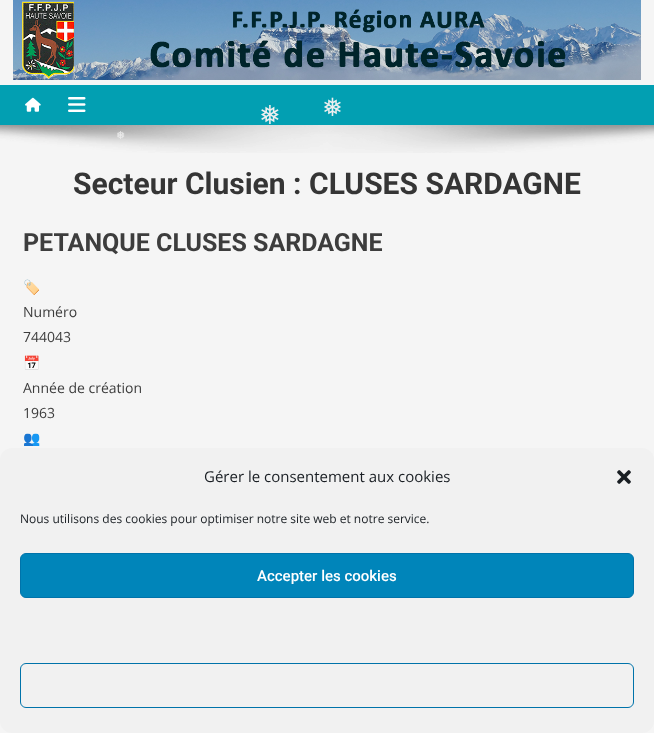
<svg xmlns="http://www.w3.org/2000/svg" width="654" height="733" viewBox="0 0 654 733">
  <rect width="100%" height="100%" fill="#f5f5f5"/>
  <image x="13" y="0" width="628" height="80" href="img/1.png"/>
  <path d="M0 85h654v40H0z" fill="#029fb2"/>
  <image x="25" y="97" width="16" height="15" href="img/2.png"/>
  <image x="68" y="97" width="18" height="15" href="img/3.png"/>
  <image x="0" y="125" width="654" height="28" href="img/4.png"/>
  <rect y="448" width="654" height="285" rx="12" fill="#f1f1f1"/>
  <image x="617" y="470" width="14" height="14" href="img/5.png"/>
  <rect x="20.5" y="553.5" width="613" height="44" rx="5.5" fill="#0085ba" stroke="#0073aa"/>
  <rect x="20.5" y="663.5" width="613" height="44" rx="5.5" fill="none" stroke="#0073aa"/>
  <text x="259" y="124" font-family="DejaVu Sans" font-size="26" fill="#efefef">❅</text>
  <text x="322" y="116" font-family="DejaVu Sans" font-size="25" fill="#efefef">❅</text>
  <text x="116" y="139" font-family="DejaVu Sans" font-size="11" fill="#efefef">❅</text>
  <text x="73" y="194" font-family="Roboto" font-size="30" font-weight="bold" fill="#353535">Secteur Clusien : CLUSES SARDAGNE</text>
  <text x="23" y="251" font-family="Roboto" font-size="25" font-weight="bold" fill="#3d3d3d">PETANQUE CLUSES SARDAGNE</text>
  <text x="23" y="292" font-family="Noto Color Emoji" font-size="14" fill="#3d3d3d">🏷️</text>
  <g font-family="Open Sans" font-size="14" fill="#3d3d3d">
    <text x="23" y="317">Numéro</text>
    <text x="23" y="342">744043</text>
  </g>
  <text x="23" y="368" font-family="Noto Color Emoji" font-size="14" fill="#3d3d3d">📅</text>
  <g font-family="Open Sans" font-size="14" fill="#3d3d3d">
    <text x="23" y="393">Année de création</text>
    <text x="23" y="418">1963</text>
  </g>
  <text x="23" y="443" font-family="Noto Color Emoji" font-size="14" fill="#3d3d3d">👥</text>
  <text x="204" y="482" font-family="Open Sans" font-size="15" fill="#191e23">Gérer le consentement aux cookies</text>
  <text x="20" y="523" font-family="Open Sans" font-size="12" fill="#191e23">Nous utilisons des cookies pour optimiser notre site web et notre service.</text>
  <text x="257" y="581" font-family="Roboto" font-size="15" font-weight="500" fill="#fff">Accepter les cookies</text>
</svg>
